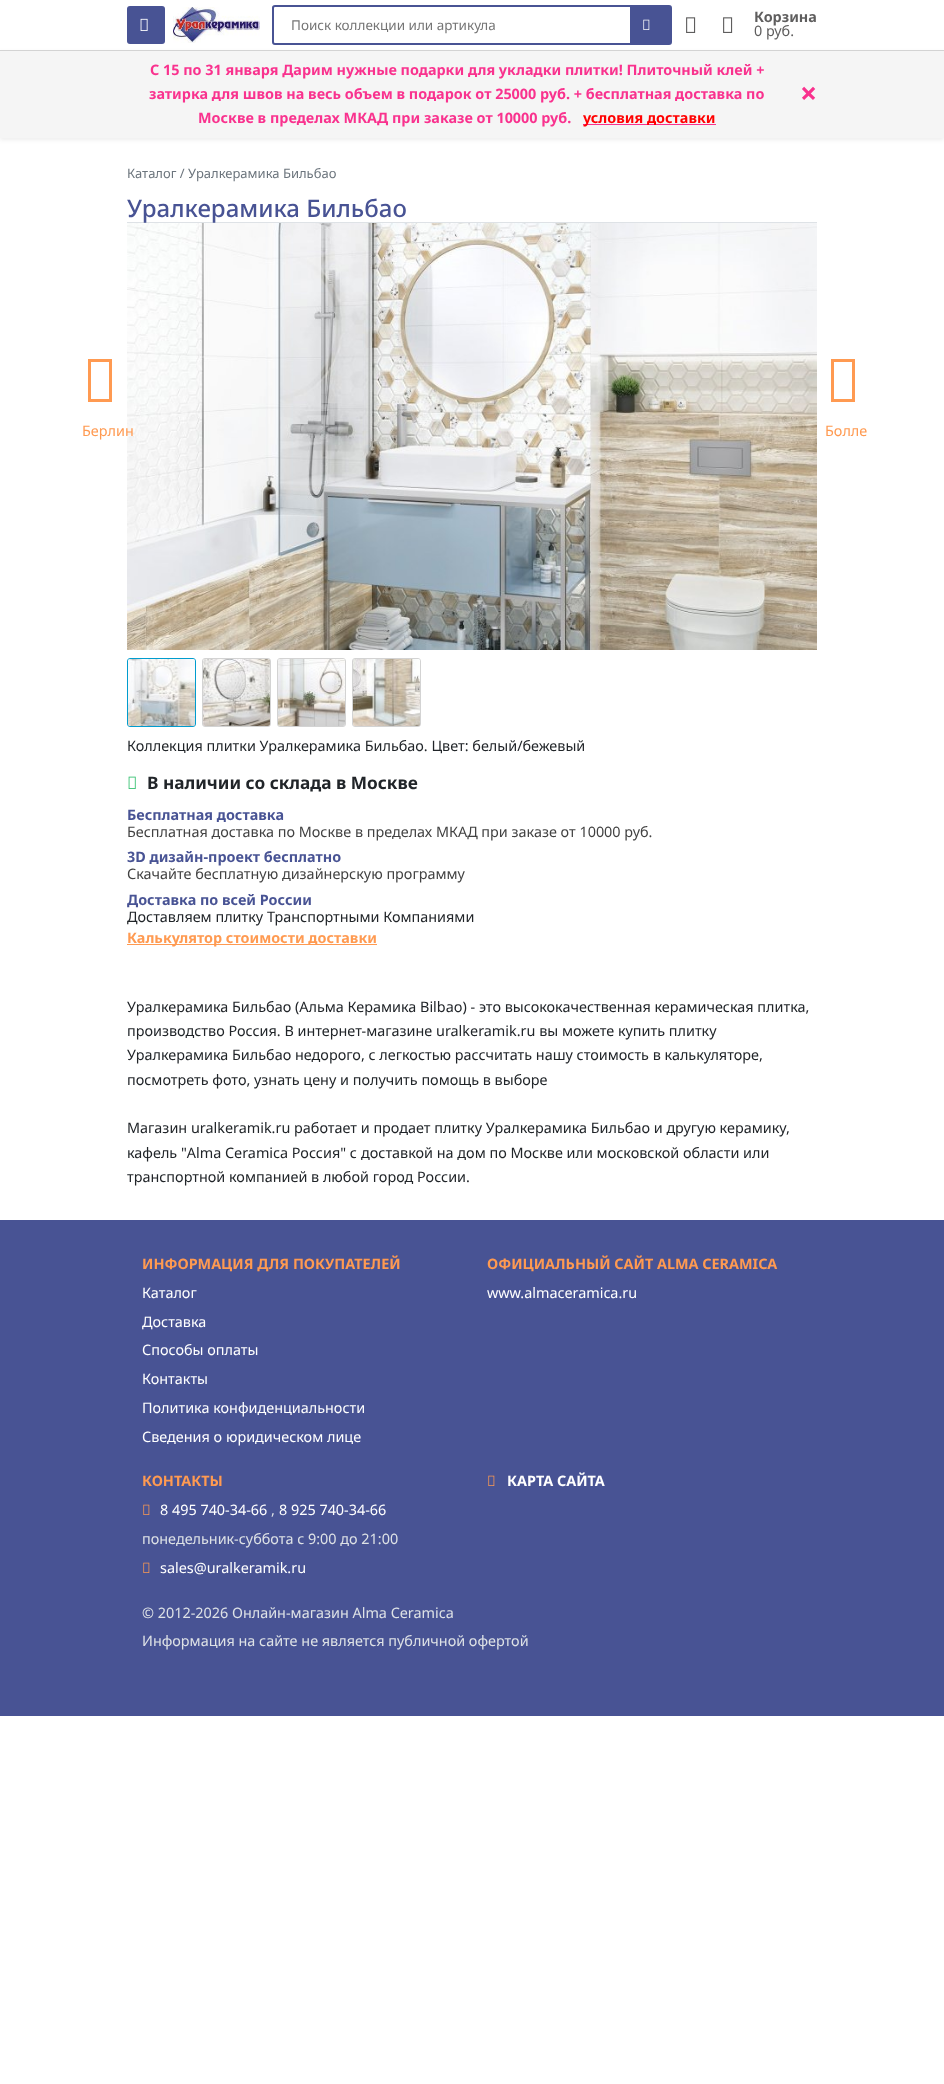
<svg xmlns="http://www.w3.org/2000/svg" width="944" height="2084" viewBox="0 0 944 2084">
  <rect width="100%" height="100%" fill="#fff"/>
  <path d="M0 52h944v88H0z" fill="#00000012" filter="blur(2px)"/>
  <path d="M0 50h944v1H0z" fill="#d3d3d3"/>
  <rect x="127" y="6" width="38" height="38" rx="3" fill="#485394"/>
  <image x="140" y="18" width="8" height="13" href="img/1.png"/>
  <image x="173" y="7" width="87" height="36" href="img/2.png"/>
  <rect x="273" y="6" width="398" height="38" rx="2" fill="none" stroke="#485394" stroke-width="2"/>
  <path d="M630 7h40v36H630z" fill="#485394"/>
  <image x="643" y="19" width="7" height="11" href="img/3.png"/>
  <image x="686" y="17" width="10" height="16" href="img/4.png"/>
  <image x="723" y="17" width="10" height="16" href="img/4.png"/>
  <path d="M0 51h944v87H0z" fill="#f5f5f5"/>
  <path d="M583 124h133v1H583z" fill="#f9328e"/>
  <path d="M127 222h690v1H127z" fill="#dee2e6"/>
  <image x="127" y="223" width="690" height="427" href="img/5.png"/>
  <rect x="127.5" y="658.5" width="68" height="68" rx="2.5" fill="none" stroke="#009cce"/>
  <image x="128" y="659" width="67" height="67" href="img/6.png"/>
  <rect x="202.5" y="658.5" width="68" height="68" rx="2.5" fill="none" stroke="#d3d3d3"/>
  <image x="203" y="659" width="67" height="67" href="img/7.png"/>
  <rect x="277.5" y="658.5" width="68" height="68" rx="2.5" fill="none" stroke="#d3d3d3"/>
  <image x="278" y="659" width="67" height="67" href="img/8.png"/>
  <rect x="352.5" y="658.5" width="68" height="68" rx="2.5" fill="none" stroke="#d3d3d3"/>
  <image x="353" y="659" width="67" height="67" href="img/9.png"/>
  <image x="128" y="776" width="8" height="13" href="img/10.png"/>
  <path d="M127 944h250v1H127z" fill="#ff9a51"/>
  <path d="M88 402V359H112V402ZM91 399H109V362H91Z" fill="#ff9a51"/>
  <path d="M831 402V359H855V402ZM834 399H852V362H834Z" fill="#ff9a51"/>
  <path d="M0 1220h944v496H0z" fill="#485394"/>
  <image x="143" y="1504" width="7" height="11" href="img/11.png"/>
  <image x="143" y="1562" width="7" height="11" href="img/11.png"/>
  <image x="488" y="1475" width="7" height="11" href="img/11.png"/>
  <text x="291" y="30" font-family="Noto Sans" font-size="13.5" fill="#757575">Поиск коллекции или артикула</text>
  <text x="754" y="22" font-family="Noto Sans" font-size="14.4" font-weight="bold" fill="#5f5e5e">Корзина</text>
  <text x="754" y="36" font-family="Noto Sans" font-size="14.4" fill="#5f5e5e">0 руб.</text>
  <g font-family="Noto Sans" font-size="14.4" font-weight="bold" fill="#f9328e">
    <text x="150" y="75">С 15 по 31 января Дарим нужные подарки для укладки плитки! Плиточный клей +</text>
    <text x="149" y="99">затирка для швов на весь объем в подарок от 25000 руб. + бесплатная доставка по</text>
  </g>
  <text x="800" y="104" font-family="Noto Sans" font-size="30" font-weight="bold" fill="#f9328e">×</text>
  <text x="198" y="123" font-family="Noto Sans" font-size="14.4" font-weight="bold" fill="#f9328e">Москве в пределах МКАД при заказе от 10000 руб.</text>
  <text x="583" y="123" font-family="Noto Sans" font-size="14.4" font-weight="bold" fill="#f00">условия доставки</text>
  <text x="127" y="178" font-family="Noto Sans" font-size="13" fill="#6c757d">Каталог / Уралкерамика Бильбао</text>
  <text x="127" y="217" font-family="Noto Sans" font-size="24" font-weight="500" fill="#485394">Уралкерамика Бильбао</text>
  <text x="127" y="751" font-family="Noto Sans" font-size="14.4" fill="#212529">Коллекция плитки Уралкерамика Бильбао. Цвет: белый/бежевый</text>
  <text x="147" y="789" font-family="Noto Sans" font-size="17.25" font-weight="bold" fill="#212529">В наличии со склада в Москве</text>
  <text x="127" y="820" font-family="Noto Sans" font-size="14.4" font-weight="bold" fill="#485394">Бесплатная доставка</text>
  <text x="127" y="837" font-family="Noto Sans" font-size="14.4" fill="#424242">Бесплатная доставка по Москве в пределах МКАД при заказе от 10000 руб.</text>
  <text x="127" y="862" font-family="Noto Sans" font-size="14.4" font-weight="bold" fill="#485394">3D дизайн-проект бесплатно</text>
  <text x="127" y="879" font-family="Noto Sans" font-size="14.4" fill="#424242">Скачайте бесплатную дизайнерскую программу</text>
  <text x="127" y="905" font-family="Noto Sans" font-size="14.4" font-weight="bold" fill="#485394">Доставка по всей России</text>
  <text x="127" y="922" font-family="Noto Sans" font-size="14.4" fill="#212529">Доставляем плитку Транспортными Компаниями</text>
  <text x="127" y="943" font-family="Noto Sans" font-size="14.4" font-weight="bold" fill="#ff9a51">Калькулятор стоимости доставки</text>
  <g font-family="Noto Sans" font-size="14.4" fill="#ff9a51">
    <text x="82" y="436">Берлин</text>
    <text x="825" y="436">Болле</text>
  </g>
  <g font-family="Noto Sans" font-size="14.4" fill="#212529">
    <text x="127" y="1012">Уралкерамика Бильбао (Альма Керамика Bilbao) - это высококачественная керамическая плитка,</text>
    <text x="127" y="1036">производство Россия. В интернет-магазине uralkeramik.ru вы можете купить плитку</text>
    <text x="127" y="1060">Уралкерамика Бильбао недорого, с легкостью рассчитать нашу стоимость в калькуляторе,</text>
    <text x="127" y="1085">посмотреть фото, узнать цену и получить помощь в выборе</text>
    <text x="127" y="1133">Магазин uralkeramik.ru работает и продает плитку Уралкерамика Бильбао и другую керамику,</text>
    <text x="127" y="1158">кафель "Alma Ceramica Россия" с</text>
    <text x="361" y="1158">доставкой на дом по Москве или московской области или</text>
    <text x="127" y="1182">транспортной компанией в любой город России.</text>
  </g>
  <text x="142" y="1269" font-family="Noto Sans" font-size="14.4" font-weight="bold" fill="#ff9a51">ИНФОРМАЦИЯ ДЛЯ ПОКУПАТЕЛЕЙ</text>
  <g font-family="Noto Sans" font-size="14.4" fill="#fff">
    <text x="142" y="1298">Каталог</text>
    <text x="142" y="1327">Доставка</text>
    <text x="142" y="1355">Способы оплаты</text>
    <text x="142" y="1384">Контакты</text>
    <text x="142" y="1413">Политика конфиденциальности</text>
    <text x="142" y="1442">Сведения о юридическом лице</text>
  </g>
  <text x="487" y="1269" font-family="Noto Sans" font-size="14.4" font-weight="bold" fill="#ff9a51">ОФИЦИАЛЬНЫЙ САЙТ ALMA CERAMICA</text>
  <text x="487" y="1298" font-family="Noto Sans" font-size="14.4" fill="#fff">www.almaceramica.ru</text>
  <text x="142" y="1486" font-family="Noto Sans" font-size="14.4" font-weight="bold" fill="#ff9a51">КОНТАКТЫ</text>
  <text x="160" y="1515" font-family="Noto Sans" font-size="14.4" fill="#fff">8 495 740-34-66</text>
  <text x="271" y="1515" font-family="Noto Sans" font-size="14.4" fill="#dee2e6">,</text>
  <text x="279" y="1515" font-family="Noto Sans" font-size="14.4" fill="#fff">8 925 740-34-66</text>
  <text x="142" y="1544" font-family="Noto Sans" font-size="14.4" fill="#dee2e6">понедельник-суббота с 9:00 до 21:00</text>
  <text x="160" y="1573" font-family="Noto Sans" font-size="14.4" fill="#fff">sales@uralkeramik.ru</text>
  <text x="507" y="1486" font-family="Noto Sans" font-size="14.4" font-weight="bold" fill="#fff">КАРТА САЙТА</text>
  <g font-family="Noto Sans" font-size="14.4" fill="#dee2e6">
    <text x="142" y="1618">© 2012-2026 Онлайн-магазин Alma Ceramica</text>
    <text x="142" y="1646">Информация на сайте не является публичной офертой</text>
  </g>
</svg>
